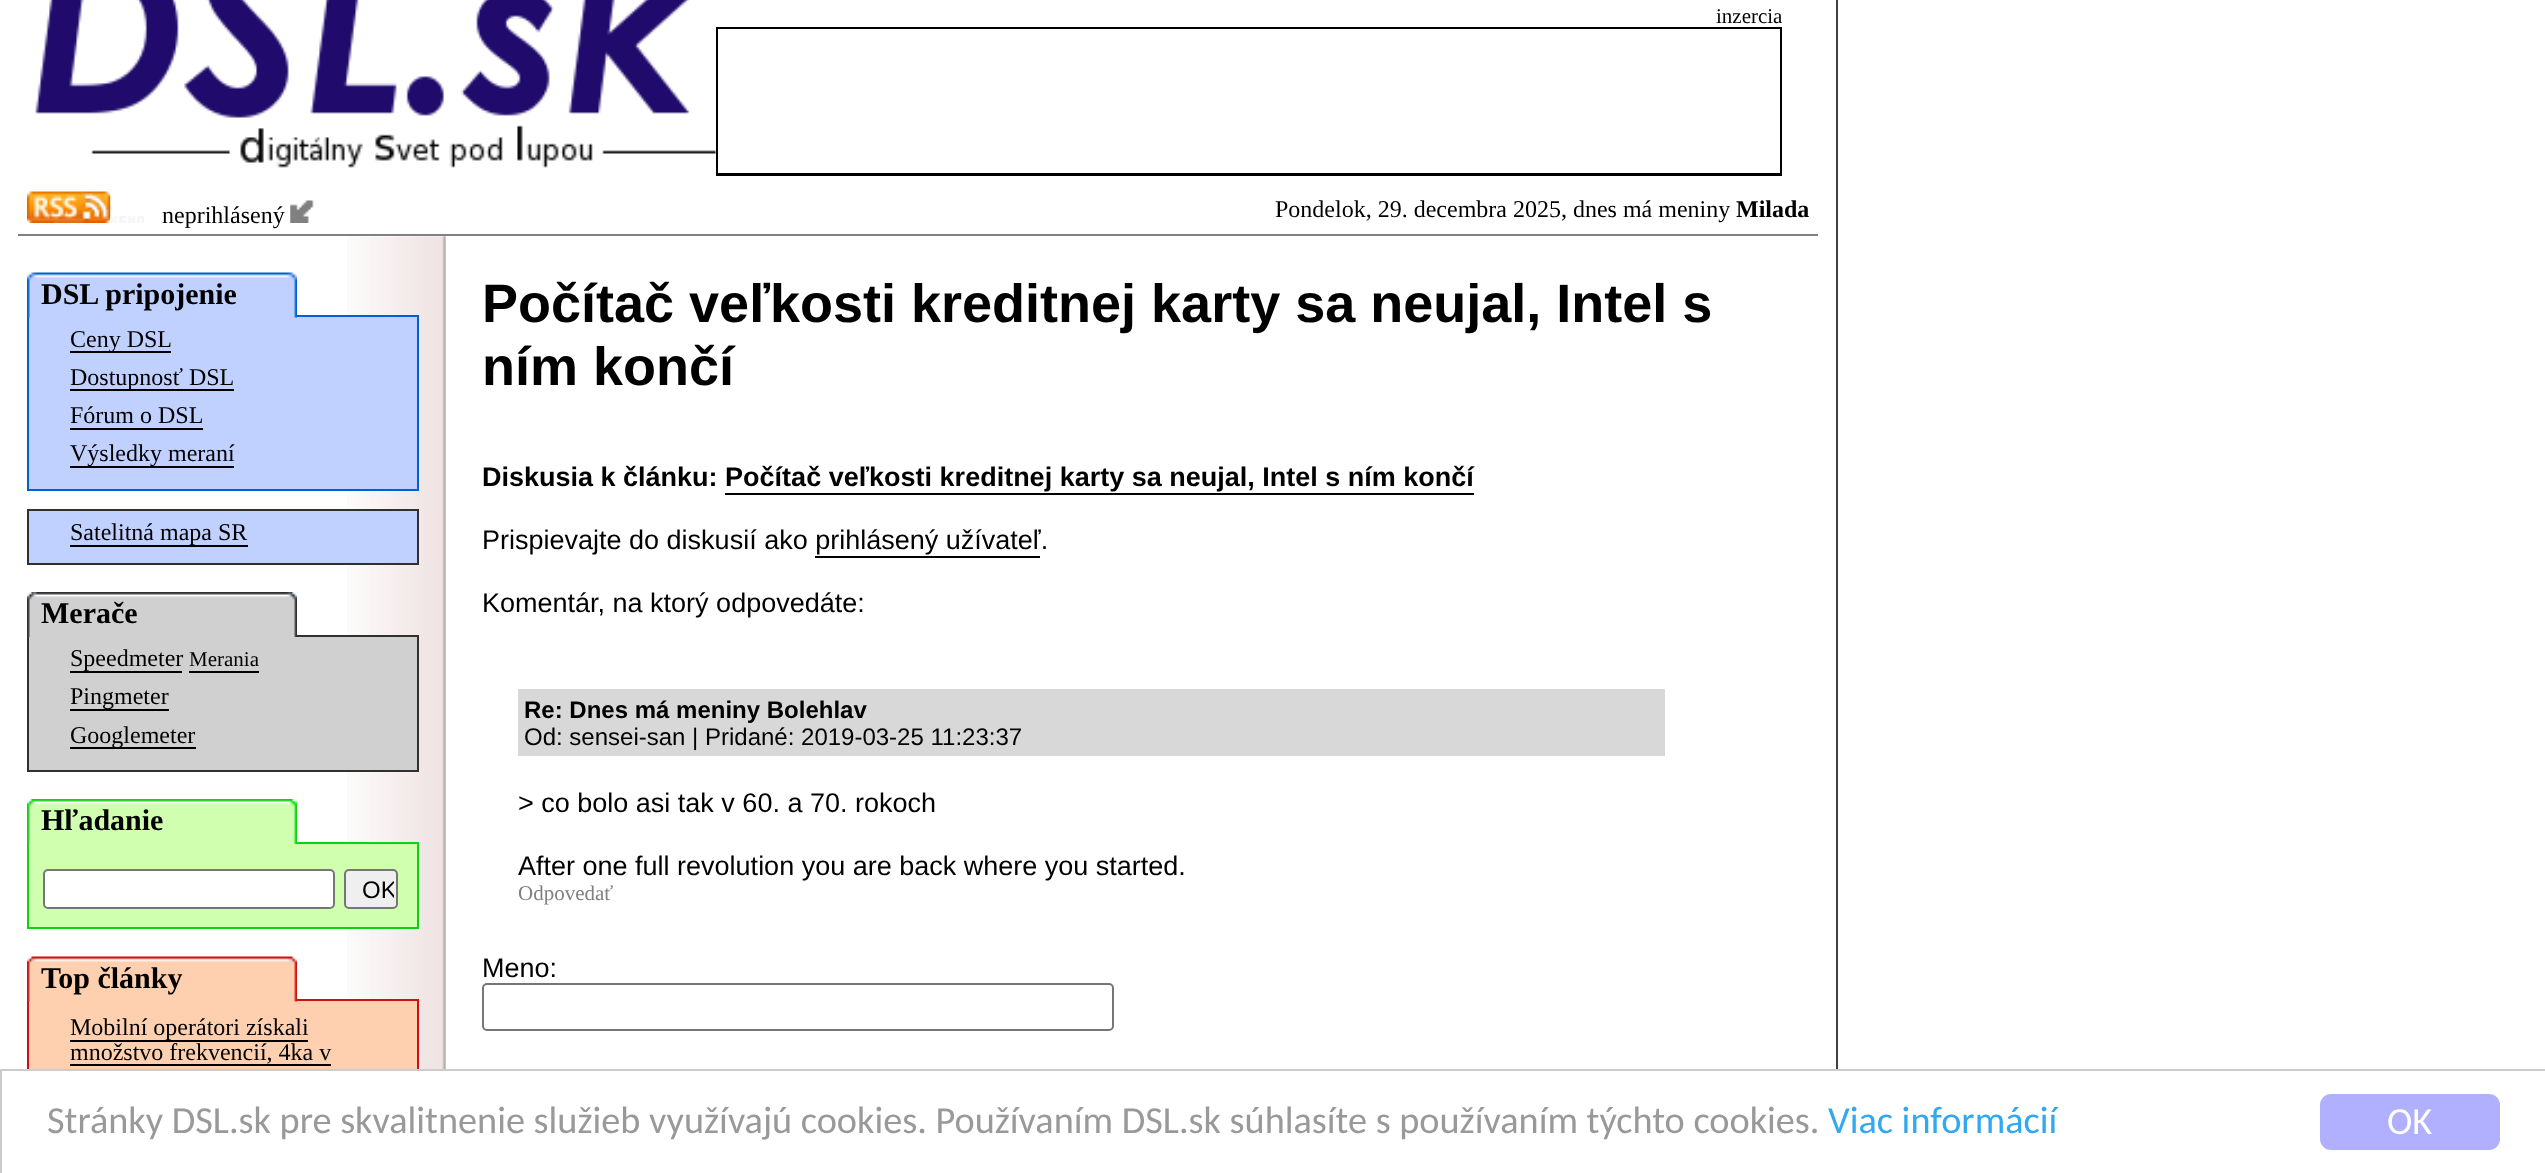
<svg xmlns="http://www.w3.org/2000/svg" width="2545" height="1173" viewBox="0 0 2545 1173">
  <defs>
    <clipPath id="clip1"><path d="M349 873h45v32H349z"/></clipPath>
  </defs>
  <rect width="100%" height="100%" fill="#fff"/>
  <path d="M1836 0h2v1069H1836z" fill="#404040"/>
  <image x="35" y="0" width="655" height="118" href="img/1.png"/>
  <image x="91" y="125" width="625" height="43" href="img/2.png"/>
  <path d="M716 27h1066v149H716z" fill="#000"/>
  <path d="M718 29h1062v144H718z" fill="#fff"/>
  <path d="M18 234h1800v2H18z" fill="#808080"/>
  <image x="27" y="191" width="84" height="32" href="img/3.png"/>
  <image x="110" y="216" width="34" height="7" href="img/4.png"/>
  <image x="290" y="200" width="24" height="23" href="img/5.png"/>
  <image x="347" y="236" width="99" height="833" href="img/6.png"/>
  <image x="395" y="236" width="51" height="833" href="img/7.png"/>
  <path d="M28 316h390v174H28z" fill="#c0d0ff" stroke="#0060d0" stroke-width="2"/>
  <image x="27" y="272" width="270" height="46" href="img/8.png"/>
  <path d="M70 351h101v2H70z" fill="#000"/>
  <path d="M70 389h164v2H70z" fill="#000"/>
  <path d="M70 428h133v2H70z" fill="#000"/>
  <path d="M70 466h164v2H70z" fill="#000"/>
  <path d="M28 510h390v54H28z" fill="#c0d0ff" stroke="#303030" stroke-width="2"/>
  <path d="M70 545h178v2H70z" fill="#000"/>
  <path d="M28 636h390v135H28z" fill="#d0d0d0" stroke="#303030" stroke-width="2"/>
  <image x="27" y="592" width="270" height="45" href="img/9.png"/>
  <path d="M70 671h112v2H70z" fill="#000"/>
  <path d="M189 671h70v2H189z" fill="#000"/>
  <path d="M70 709h99v2H70z" fill="#000"/>
  <path d="M70 747h126v2H70z" fill="#000"/>
  <path d="M28 843h390v85H28z" fill="#d0ffb0" stroke="#10d010" stroke-width="2"/>
  <image x="27" y="799" width="270" height="45" href="img/10.png"/>
  <rect x="44" y="870" width="290" height="38" rx="4" fill="#fff" stroke="#767676" stroke-width="2"/>
  <rect x="345" y="870" width="52" height="38" rx="4" fill="#efefef" stroke="#767676" stroke-width="2"/>
  <path d="M29 1001h388v68H29z" fill="#ffd0b0"/>
  <path d="M28 1000h390v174H28z" fill="none" stroke="#d01010" stroke-width="2"/>
  <image x="27" y="956" width="270" height="46" href="img/11.png"/>
  <path d="M70 1040h238v2H70z" fill="#000"/>
  <path d="M70 1064h261v2H70z" fill="#000"/>
  <path d="M725 493h749v2H725z" fill="#000"/>
  <path d="M815 556h225v2H815z" fill="#000"/>
  <path d="M518 689h1147v67H518z" fill="#d8d8d8"/>
  <rect x="483" y="984" width="630" height="46" rx="4" fill="none" stroke="#767676" stroke-width="2"/>
  <path d="M27 1071h392v102H27z" fill="#fff"/>
  <path d="M1 1070h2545v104H1z" fill="none" stroke="#ccc" stroke-width="2"/>
  <rect x="2320" y="1094" width="180" height="56" rx="11" fill="#b0b0ff"/>
  <text x="1716" y="23" font-family="Liberation Serif" font-size="21" fill="#000">inzercia</text>
  <g font-family="Liberation Serif" font-size="24" fill="#000">
    <text x="162" y="223">neprihlásený</text>
    <text x="1275" y="217">Pondelok, 29. decembra 2025, dnes má meniny</text>
  </g>
  <text x="1736" y="217" font-family="Liberation Serif" font-size="24" font-weight="bold" fill="#000">Milada</text>
  <text x="41" y="304" font-family="Liberation Serif" font-size="30" font-weight="bold" fill="#000">DSL pripojenie</text>
  <g font-family="Liberation Serif" font-size="24" fill="#000">
    <text x="70" y="347">Ceny DSL</text>
    <text x="70" y="385">Dostupnosť DSL</text>
    <text x="70" y="423">Fórum o DSL</text>
    <text x="70" y="461">Výsledky meraní</text>
    <text x="70" y="540">Satelitná mapa SR</text>
  </g>
  <text x="41" y="623" font-family="Liberation Serif" font-size="30" font-weight="bold" fill="#000">Merače</text>
  <text x="70" y="666" font-family="Liberation Serif" font-size="24" fill="#000">Speedmeter</text>
  <text x="189" y="666" font-family="Liberation Serif" font-size="21" fill="#000">Merania</text>
  <g font-family="Liberation Serif" font-size="24" fill="#000">
    <text x="70" y="704">Pingmeter</text>
    <text x="70" y="743">Googlemeter</text>
  </g>
  <text x="41" y="830" font-family="Liberation Serif" font-size="30" font-weight="bold" fill="#000">Hľadanie</text>
  <g clip-path="url(#clip1)">
    <text x="362" y="898" font-family="Liberation Sans" font-size="24" fill="#000">OK</text>
  </g>
  <text x="41" y="988" font-family="Liberation Serif" font-size="30" font-weight="bold" fill="#000">Top články</text>
  <g font-family="Liberation Serif" font-size="24" fill="#000">
    <text x="70" y="1035">Mobilní operátori získali</text>
    <text x="70" y="1060">množstvo frekvencií, 4ka v</text>
  </g>
  <g font-family="Liberation Sans" font-size="54" font-weight="bold" fill="#000">
    <text x="482" y="322">Počítač veľkosti kreditnej karty sa neujal, Intel s</text>
    <text x="482" y="385">ním končí</text>
  </g>
  <text x="482" y="486" font-family="Liberation Sans" font-size="27" font-weight="bold" fill="#000">Diskusia k článku: Počítač veľkosti kreditnej karty sa neujal, Intel s ním končí</text>
  <g font-family="Liberation Sans" font-size="27" fill="#000">
    <text x="482" y="549">Prispievajte do diskusií ako prihlásený užívateľ.</text>
    <text x="482" y="612">Komentár, na ktorý odpovedáte:</text>
  </g>
  <text x="524" y="718" font-family="Liberation Sans" font-size="24" font-weight="bold" fill="#000">Re: Dnes má meniny Bolehlav</text>
  <text x="524" y="745" font-family="Liberation Sans" font-size="24" fill="#000">Od: sensei-san | Pridané: 2019-03-25 11:23:37</text>
  <g font-family="Liberation Sans" font-size="27" fill="#000">
    <text x="518" y="812">&gt; co bolo asi tak v 60. a 70. rokoch</text>
    <text x="518" y="875">After one full revolution you are back where you started.</text>
  </g>
  <text x="518" y="900" font-family="Liberation Serif" font-size="21" fill="#808080">Odpovedať</text>
  <text x="482" y="977" font-family="Liberation Sans" font-size="27" fill="#000">Meno:</text>
  <text x="47" y="1133" font-family="Carlito" font-size="38.25" fill="#999">Stránky DSL.sk pre skvalitnenie služieb využívajú cookies. Používaním DSL.sk súhlasíte s používaním týchto cookies.</text>
  <text x="1828" y="1133" font-family="Carlito" font-size="38.25" fill="#31a8f0">Viac informácií</text>
  <text x="2387" y="1134" font-family="Carlito" font-size="38.25" fill="#fff">OK</text>
</svg>
